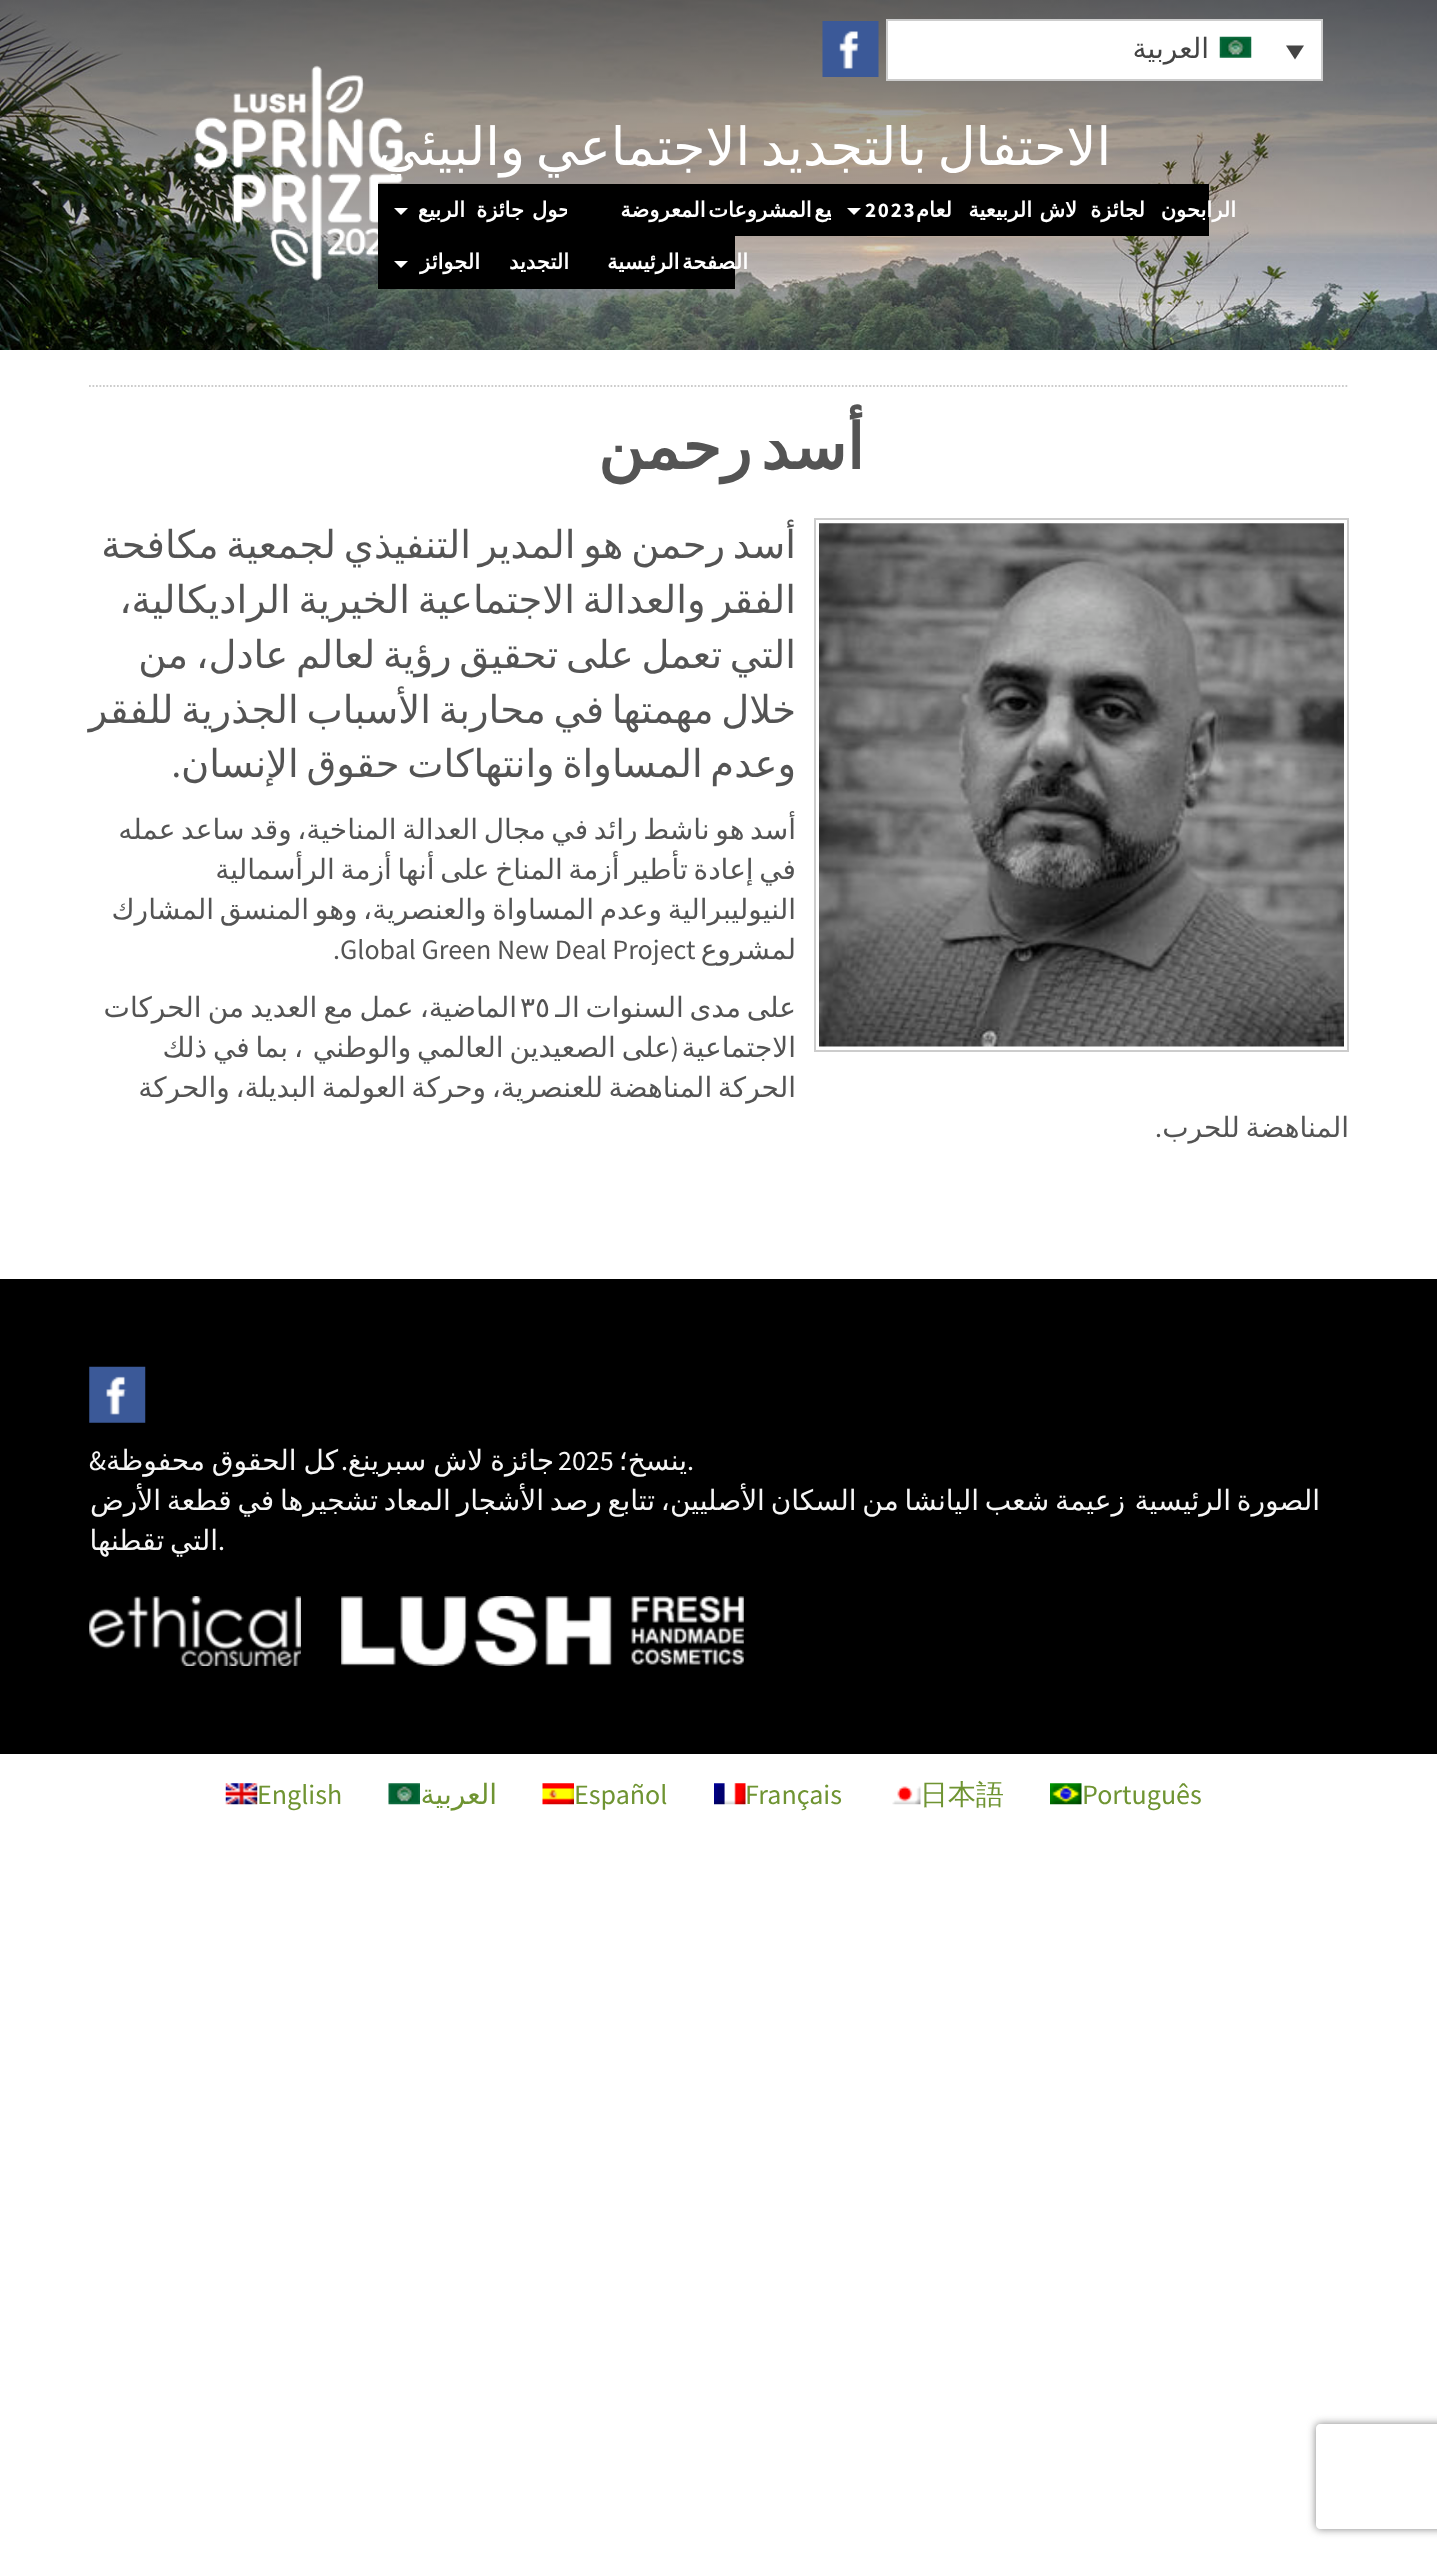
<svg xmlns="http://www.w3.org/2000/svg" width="1437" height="2553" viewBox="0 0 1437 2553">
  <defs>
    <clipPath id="clip1"><path d="M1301 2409H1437V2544H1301ZM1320 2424H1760C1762 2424 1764 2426 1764 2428V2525C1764 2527 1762 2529 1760 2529H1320C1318 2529 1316 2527 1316 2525V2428C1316 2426 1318 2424 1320 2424Z" clip-rule="evenodd"/></clipPath>
  </defs>
  <rect width="100%" height="100%" fill="#fff"/>
  <image x="0" y="0" width="1437" height="350" href="img/1.png"/>
  <path d="M887 20h435v60H887z" fill="#fff" stroke="#cdcdcd" stroke-width="2"/>
  <path d="M1286 45.5H1304L1295 59.5Z" fill="#444"/>
  <image x="1219" y="36" width="33" height="22" href="img/2.png"/>
  <image x="822" y="21" width="57" height="56" href="img/3.png"/>
  <image x="194" y="65" width="210" height="217" href="img/4.png"/>
  <path d="M378 184h189v52H378z" fill="#000"/>
  <path d="M394 208H408L401 215Z" fill="#fff"/>
  <path d="M378 236h357v53H378z" fill="#000"/>
  <path d="M394 261H408L401 268Z" fill="#fff"/>
  <path d="M89 386H1349" fill="none" stroke="#ccc" stroke-width="1.8" stroke-dasharray="1.75 1.75"/>
  <path d="M815 519h533v532H815z" fill="none" stroke="#ccc" stroke-width="2"/>
  <image x="819" y="523" width="525" height="524" href="img/5.png"/>
  <path d="M0 1279h1437v475H0z" fill="#000"/>
  <image x="89" y="1366" width="57" height="57" href="img/6.png"/>
  <image x="341" y="1596" width="403" height="70" href="img/7.png"/>
  <image x="89" y="1596" width="212" height="70" href="img/8.png"/>
  <image x="1050" y="1783" width="32" height="22" href="img/9.png"/>
  <image x="892" y="1786" width="29" height="19" href="img/10.png"/>
  <image x="714" y="1783" width="32" height="22" href="img/11.png"/>
  <image x="542" y="1783" width="32" height="22" href="img/12.png"/>
  <image x="388" y="1783" width="32" height="22" href="img/13.png"/>
  <image x="225" y="1783" width="33" height="22" href="img/14.png"/>
  <g clip-path="url(#clip1)">
    <rect x="1316" y="2424" width="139" height="105" rx="4" fill="#808080" filter="blur(4.5px)"/>
  </g>
  <text x="1209" y="58" font-family="DejaVu Sans" font-size="28" direction="rtl" fill="#444">العربية</text>
  <text x="1111" y="165" word-spacing="-6" font-family="DejaVu Sans" font-size="52.5" direction="rtl" fill="#fff">الاحتفال بالتجديد الاجتماعي والبيئي</text>
  <text x="571" y="217" font-family="DejaVu Sans" font-size="21" font-weight="bold" letter-spacing="1.75" direction="rtl" fill="#fff">حول</text>
  <path d="M567 184h264v52H567z" fill="#000"/>
  <text x="857" y="217" word-spacing="-4" font-family="DejaVu Sans" font-size="21" font-weight="bold" letter-spacing="1.75" direction="rtl" fill="#fff">جميع المشروعات المعروضة</text>
  <path d="M831 184h378v52H831z" fill="#000"/>
  <path d="M847 208H861L854 215Z" fill="#fff"/>
  <g font-family="DejaVu Sans" font-size="21" font-weight="bold" letter-spacing="1.75" direction="rtl" fill="#fff">
    <text x="1236" y="217">الرابحون</text>
    <text x="1145" y="217">لجائزة</text>
    <text x="1077" y="217">لاش</text>
    <text x="1032" y="217">الربيعية</text>
  </g>
  <text x="865" y="217" font-family="Source Sans Pro" font-size="21" font-weight="bold" letter-spacing="1.75" fill="#fff">2023</text>
  <g font-family="DejaVu Sans" font-size="21" font-weight="bold" letter-spacing="1.75" direction="rtl" fill="#fff">
    <text x="952" y="217">لعام</text>
    <text x="524" y="217">جائزة</text>
    <text x="465" y="217">الربيع</text>
    <text x="748" y="269" word-spacing="-4">الصفحة الرئيسية</text>
    <text x="569" y="269">التجديد</text>
    <text x="480" y="269">الجوائز</text>
  </g>
  <text x="864" y="469" word-spacing="-11" font-family="DejaVu Sans" font-size="63" font-weight="bold" letter-spacing="1.75" direction="rtl" fill="#545454">أسد رحمن</text>
  <g font-family="DejaVu Sans" font-size="38.5" direction="rtl" fill="#545454">
    <text x="796" y="558" word-spacing="-4.5">أسد رحمن هو المدير التنفيذي لجمعية مكافحة</text>
    <text x="796" y="613" word-spacing="-4.5">الفقر والعدالة الاجتماعية الخيرية الراديكالية،</text>
    <text x="796" y="668" word-spacing="-4.5">التي تعمل على تحقيق رؤية لعالم عادل، من</text>
    <text x="796" y="723" word-spacing="-4.5">خلال مهمتها في محاربة الأسباب الجذرية للفقر</text>
    <text x="796" y="777" word-spacing="-4.5">وعدم المساواة وانتهاكات حقوق الإنسان</text>
  </g>
  <text x="181" y="777" font-family="Source Sans Pro" font-size="38.5" direction="rtl" fill="#545454">.</text>
  <g font-family="DejaVu Sans" font-size="28" direction="rtl" fill="#545454">
    <text x="796" y="839" word-spacing="-3.25">أسد هو ناشط رائد في مجال العدالة المناخية، وقد ساعد عمله</text>
    <text x="796" y="879" word-spacing="-3.25">في إعادة تأطير أزمة المناخ على أنها أزمة الرأسمالية</text>
    <text x="796" y="919" word-spacing="-3.25">النيوليبرالية وعدم المساواة والعنصرية، وهو المنسق المشارك</text>
    <text x="796" y="959">لمشروع</text>
  </g>
  <text x="333" y="959" font-family="Source Sans Pro" font-size="28" fill="#545454">.Global Green New Deal Project</text>
  <g font-family="DejaVu Sans" font-size="28" direction="rtl" fill="#545454">
    <text x="796" y="1017" word-spacing="-3.25">على مدى السنوات الـ</text>
    <text x="517" y="1017" word-spacing="-2.75">الماضية، عمل مع العديد من الحركات</text>
  </g>
  <text x="520" y="1017" font-family="DejaVu Sans" font-size="28" fill="#545454">٣٥</text>
  <g font-family="DejaVu Sans" font-size="28" direction="rtl" fill="#545454">
    <text x="796" y="1057">الاجتماعية</text>
    <text x="671" y="1057" word-spacing="-3">على الصعيدين العالمي والوطني</text>
    <text x="303" y="1057" word-spacing="-3">، بما في ذلك</text>
  </g>
  <text x="679" y="1057" font-family="Source Sans Pro" font-size="28" direction="rtl" fill="#545454">(</text>
  <g font-family="DejaVu Sans" font-size="28" direction="rtl" fill="#545454">
    <text x="796" y="1097" word-spacing="-3.25">الحركة المناهضة للعنصرية، وحركة العولمة البديلة، والحركة</text>
    <text x="1349" y="1137" word-spacing="-3.25">المناهضة للحرب</text>
  </g>
  <text x="1162" y="1137" font-family="Source Sans Pro" font-size="28" direction="rtl" fill="#545454">.</text>
  <text x="687" y="1470" font-family="Source Sans Pro" font-size="28" fill="#f6f6f6">.</text>
  <text x="687" y="1470" font-family="DejaVu Sans" font-size="28" direction="rtl" fill="#f6f6f6">ينسخ؛</text>
  <text x="558" y="1470" font-family="Source Sans Pro" font-size="28" fill="#f6f6f6">2025</text>
  <text x="554" y="1470" word-spacing="-2" font-family="DejaVu Sans" font-size="28" direction="rtl" fill="#f6f6f6">جائزة لاش سبرينغ</text>
  <text x="348" y="1470" font-family="Source Sans Pro" font-size="28" direction="rtl" fill="#f6f6f6">.</text>
  <text x="338" y="1470" word-spacing="-2" font-family="DejaVu Sans" font-size="28" direction="rtl" fill="#f6f6f6">كل الحقوق محفوظة</text>
  <text x="89" y="1470" font-family="Source Sans Pro" font-size="28" fill="#f6f6f6">&amp;</text>
  <g font-family="DejaVu Sans" font-size="28" direction="rtl" fill="#f6f6f6">
    <text x="1125" y="1510" word-spacing="-3.1">زعيمة شعب اليانشا من السكان الأصليين، تتابع رصد الأشجار المعاد تشجيرها في قطعة الأرض</text>
    <text x="1320" y="1510" word-spacing="-3.1">الصورة الرئيسية</text>
  </g>
  <text x="218" y="1550" font-family="Source Sans Pro" font-size="28" fill="#f6f6f6">.</text>
  <text x="218" y="1550" word-spacing="-3.25" font-family="DejaVu Sans" font-size="28" direction="rtl" fill="#f6f6f6">التي تقطنها</text>
  <text x="1082" y="1804" font-family="Source Sans Pro" font-size="28" fill="#6f9432">Português</text>
  <text x="920" y="1804" font-family="WenQuanYi Zen Hei" font-size="28" font-weight="500" fill="#6f9432">日本語</text>
  <g font-family="Source Sans Pro" font-size="28" fill="#6f9432">
    <text x="745" y="1804">Français</text>
    <text x="574" y="1804">Español</text>
  </g>
  <text x="497" y="1804" font-family="DejaVu Sans" font-size="28" direction="rtl" fill="#6f9432">العربية</text>
  <text x="257" y="1804" font-family="Source Sans Pro" font-size="28" fill="#6f9432">English</text>
</svg>
